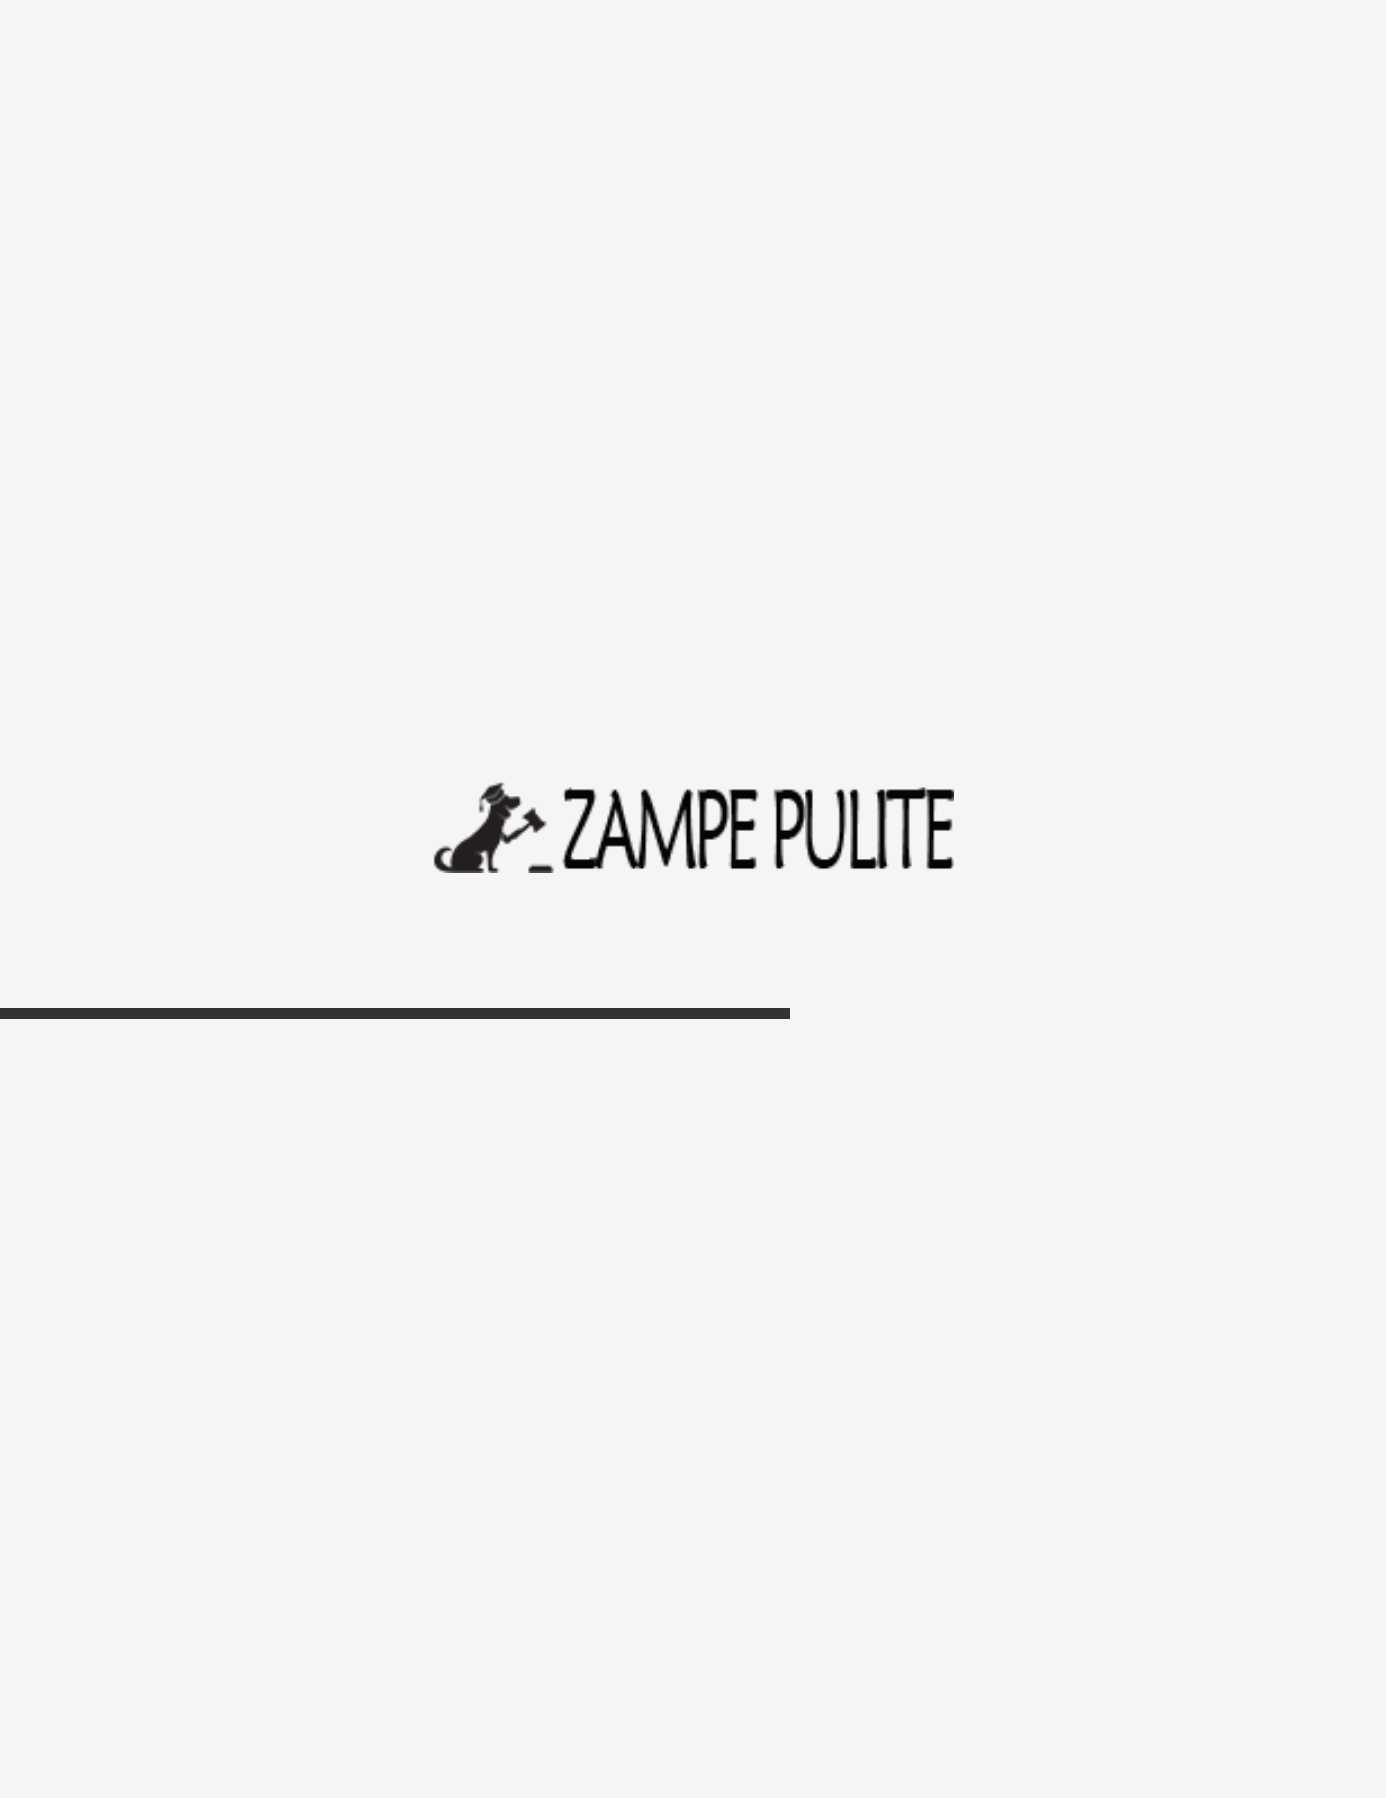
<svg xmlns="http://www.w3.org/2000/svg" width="1386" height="1798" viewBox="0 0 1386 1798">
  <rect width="100%" height="100%" fill="#f5f5f5"/>
  <image x="433" y="782" width="521" height="91" href="img/1.png"/>
  <path d="M0 1008h790v11H0z" fill="#333"/>
</svg>
